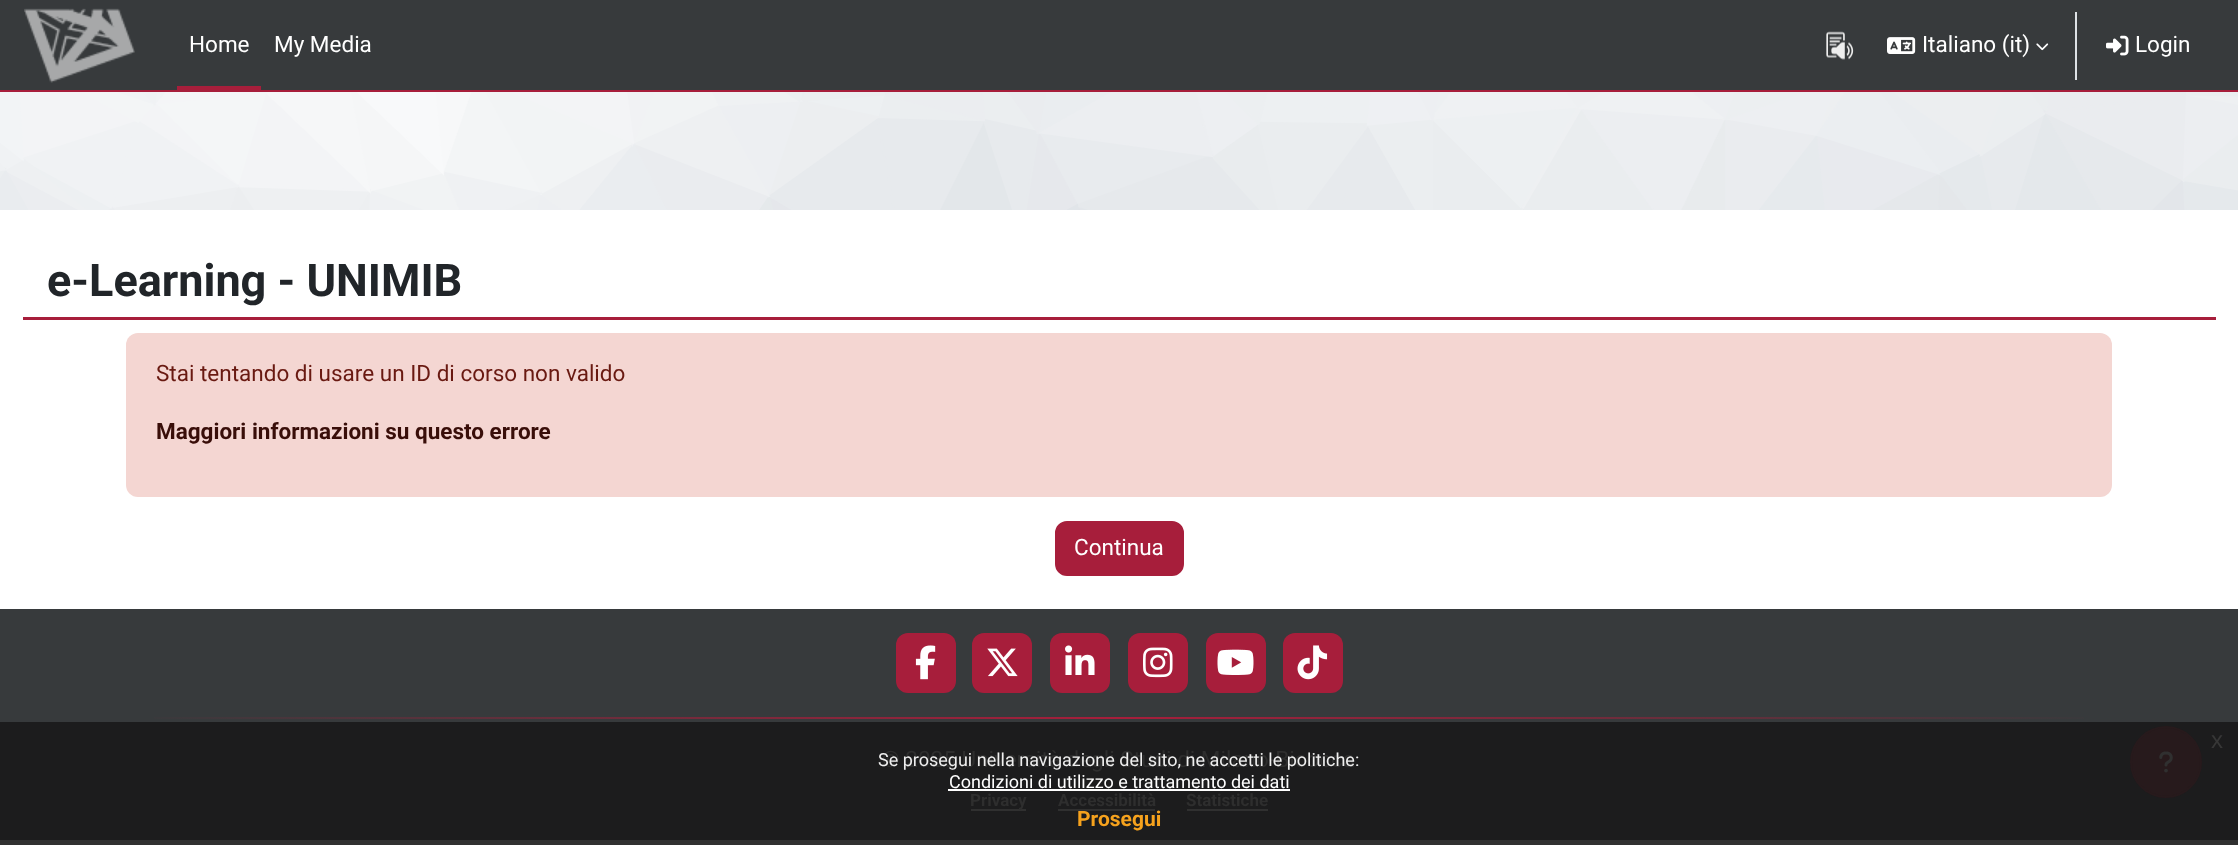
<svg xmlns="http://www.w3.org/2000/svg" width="2238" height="845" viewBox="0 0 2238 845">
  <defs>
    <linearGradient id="g1" gradientUnits="userSpaceOnUse" x1="132" y1="718" x2="2106" y2="718"><stop offset="0" stop-color="#373a3c"/><stop offset="0.5" stop-color="#a71e3b"/><stop offset="1" stop-color="#373a3c"/></linearGradient>
  </defs>
  <rect width="100%" height="100%" fill="#fff"/>
  <path d="M0 840h2238v5H0z" fill="#303030"/>
  <path d="M0 0h2238v90H0z" fill="#373a3c"/>
  <path d="M0 90h2238v2H0z" fill="#a71e3b"/>
  <image x="24" y="8" width="111" height="75" href="img/1.png"/>
  <path d="M177 86h84v4H177z" fill="#a71e3b"/>
  <image x="1826" y="31" width="28" height="29" href="img/2.png"/>
  <image x="1887" y="37" width="29" height="17" href="img/3.png"/>
  <image x="2036" y="43" width="13" height="8" href="img/4.png"/>
  <path d="M2075 12h2v68H2075z" fill="#dee2e6"/>
  <image x="2106" y="35" width="23" height="21" href="img/5.png"/>
  <image x="0" y="92" width="2238" height="118" href="img/6.png"/>
  <path d="M23 317h2193v3H23z" fill="#a71e3b"/>
  <rect x="126" y="333" width="1986" height="164" rx="12" fill="#f4d6d2"/>
  <rect x="1056" y="522" width="127" height="53" rx="11" fill="#a71e3b" stroke="#a71e3b" stroke-width="2"/>
  <path d="M0 609h2238v113H0z" fill="#373a3c"/>
  <path d="M0 722h2238v118H0z" fill="#1c1c1d"/>
  <rect x="896" y="633" width="60" height="60" rx="12" fill="#a71e3b"/>
  <image x="915" y="645" width="21" height="35" href="img/7.png"/>
  <rect x="972" y="633" width="60" height="60" rx="12" fill="#a71e3b"/>
  <image x="987" y="648" width="31" height="29" href="img/8.png"/>
  <rect x="1050" y="633" width="60" height="60" rx="12" fill="#a71e3b"/>
  <image x="1065" y="645" width="30" height="30" href="img/9.png"/>
  <rect x="1128" y="633" width="60" height="60" rx="12" fill="#a71e3b"/>
  <image x="1143" y="647" width="30" height="31" href="img/10.png"/>
  <rect x="1206" y="633" width="60" height="60" rx="12" fill="#a71e3b"/>
  <image x="1217" y="649" width="37" height="26" href="img/11.png"/>
  <rect x="1283" y="633" width="60" height="60" rx="12" fill="#a71e3b"/>
  <image x="1297" y="645" width="31" height="35" href="img/12.png"/>
  <path d="M154 717h1930v2H154z" fill="url(#g1)"/>
  <path d="M971 809h55v2H971z" fill="#303030"/>
  <path d="M1058 809h97v2H1058z" fill="#303030"/>
  <path d="M1187 809h81v2H1187z" fill="#303030"/>
  <circle cx="2166" cy="762" r="35" fill="#271a1c" stroke="#271a1c" stroke-width="2"/>
  <image x="2159" y="751" width="14" height="22" href="img/13.png"/>
  <path d="M948 789h342v2H948z" fill="#fff"/>
  <g font-family="Roboto" font-size="22.5" fill="#fff">
    <text x="189" y="52">Home</text>
    <text x="274" y="52">My Media</text>
    <text x="1922" y="52">Italiano (it)</text>
    <text x="2135" y="52">Login</text>
  </g>
  <text x="47" y="296" font-family="Roboto" font-size="45" font-weight="bold" fill="#212529">e-Learning - UNIMIB</text>
  <text x="156" y="381" font-family="Roboto" font-size="22.5" fill="#691911">Stai tentando di usare un ID di corso non valido</text>
  <text x="156" y="439" font-family="Roboto" font-size="22.5" font-weight="bold" fill="#390e09">Maggiori informazioni su questo errore</text>
  <text x="1074" y="555" font-family="Roboto" font-size="22.5" fill="#fff">Continua</text>
  <text x="882" y="767" font-family="Roboto" font-size="22.5" fill="#2e2e2e">© 2025 Università degli Studi di Milano-Bicocca</text>
  <g font-family="Roboto" font-size="17" font-weight="bold" fill="#2e2e2e">
    <text x="970" y="806">Privacy</text>
    <text x="1058" y="806">Accessibilità</text>
    <text x="1186" y="806">Statistiche</text>
  </g>
  <text x="2211" y="748" font-family="Liberation Sans" font-size="24" fill="#373737">x</text>
  <text x="878" y="766" font-family="Roboto" font-size="18" fill="#efefef">Se prosegui nella navigazione del sito, ne accetti le politiche:</text>
  <text x="949" y="788" font-family="Roboto" font-size="18" fill="#fff">Condizioni di utilizzo e trattamento dei dati</text>
  <text x="1077" y="826" font-family="Roboto" font-size="21" font-weight="bold" fill="#f6a21d">Prosegui</text>
</svg>
